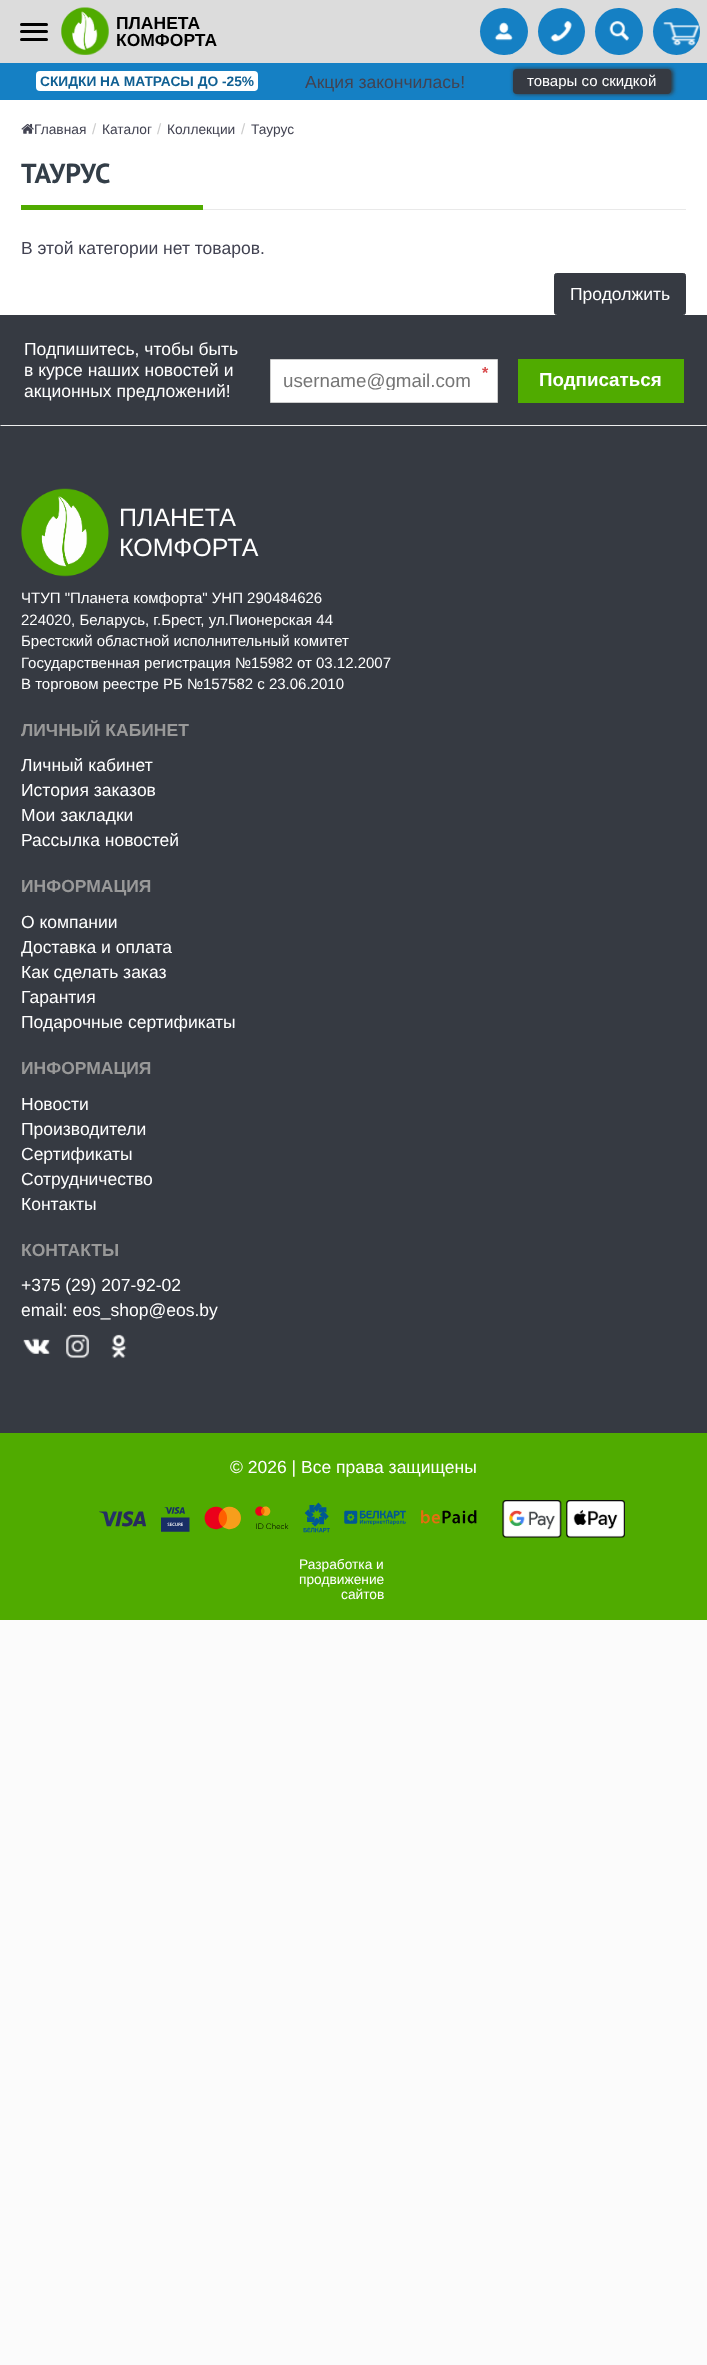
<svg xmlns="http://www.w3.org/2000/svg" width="707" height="2365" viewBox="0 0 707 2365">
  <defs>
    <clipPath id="clip1"><path d="M283 369h202v21H283z"/></clipPath>
  </defs>
  <rect width="100%" height="100%" fill="#fbfbfb"/>
  <path d="M0 100h707v215H0z" fill="#fff"/>
  <path d="M0 63h707v37H0z" fill="#1580c4"/>
  <rect x="514" y="69" width="159" height="25" rx="4" fill="#333" filter="blur(2px)"/>
  <path d="M0 0h707v63H0z" fill="#dcdcdc"/>
  <rect x="20" y="23" width="28" height="3" rx="1.5" fill="#000"/>
  <rect x="20" y="30" width="28" height="3" rx="1.5" fill="#000"/>
  <rect x="20" y="38" width="28" height="3" rx="1.5" fill="#000"/>
  <image x="61" y="7" width="48" height="48" href="img/1.png"/>
  <rect x="480" y="8" width="48" height="47" rx="23.5" fill="#1580c4"/>
  <image x="494" y="22" width="19" height="19" href="img/2.png"/>
  <circle cx="561.5" cy="31.5" r="23.5" fill="#1580c4"/>
  <image x="550" y="21" width="22" height="21" href="img/3.png"/>
  <rect x="595" y="8" width="48" height="47" rx="23.5" fill="#1580c4"/>
  <image x="609" y="21" width="20" height="20" href="img/4.png"/>
  <circle cx="676.5" cy="31.5" r="23.5" fill="#1580c4"/>
  <image x="663" y="22" width="36" height="24" href="img/5.png"/>
  <rect x="36" y="71" width="222" height="20" rx="4" fill="#fff"/>
  <rect x="513" y="69" width="158" height="25" rx="4" fill="#363a42"/>
  <image x="21" y="123" width="13" height="11" href="img/6.png"/>
  <path d="M203 209h483v1H203z" fill="#e9e9e9"/>
  <path d="M21 205h182v5H21z" fill="#50ab00"/>
  <rect x="554.5" y="273.5" width="131" height="41" rx="2" fill="#363a42" stroke="#363a42"/>
  <path d="M0 315h707v1118H0z" fill="#363a42"/>
  <path d="M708 426H0L1 425H706Z" fill="#eee"/>
  <path d="M270.5 359.5h227v43H270.5z" fill="#fff" stroke="#ccc"/>
  <path d="M518 359h166v44H518z" fill="#50ab00"/>
  <image x="21" y="488" width="88" height="89" href="img/7.png"/>
  <image x="23" y="1338" width="28" height="16" href="img/8.png"/>
  <image x="66" y="1334" width="23" height="24" href="img/9.png"/>
  <image x="111" y="1334" width="16" height="24" href="img/10.png"/>
  <path d="M0 1433h707v187H0z" fill="#50ab00"/>
  <image x="99" y="1502" width="378" height="31" href="img/11.png"/>
  <image x="502" y="1500" width="60" height="38" href="img/12.png"/>
  <image x="566" y="1500" width="59" height="38" href="img/13.png"/>
  <g font-family="Liberation Sans" font-size="17.5" font-weight="bold" fill="#000">
    <text x="116" y="29">ПЛАНЕТА</text>
    <text x="116" y="46">КОМФОРТА</text>
  </g>
  <text x="40" y="86" font-family="Liberation Sans" font-size="13.75" font-weight="bold" fill="#106093">СКИДКИ НА МАТРАСЫ ДО -25%</text>
  <text x="305" y="88" font-family="Liberation Sans" font-size="17.5" fill="#424352">Акция закончилась!</text>
  <text x="527" y="86" font-family="Liberation Sans" font-size="15" fill="#fff">товары со скидкой</text>
  <text x="34" y="134" font-family="Liberation Sans" font-size="13.75" fill="#424352">Главная</text>
  <text x="92" y="134" font-family="Liberation Sans" font-size="15" fill="#ccc">/</text>
  <text x="102" y="134" font-family="Liberation Sans" font-size="13.75" fill="#424352">Каталог</text>
  <text x="157" y="134" font-family="Liberation Sans" font-size="15" fill="#ccc">/</text>
  <text x="167" y="134" font-family="Liberation Sans" font-size="13.75" fill="#424352">Коллекции</text>
  <text x="241" y="134" font-family="Liberation Sans" font-size="15" fill="#ccc">/</text>
  <text x="251" y="134" font-family="Liberation Sans" font-size="13.75" fill="#424352">Таурус</text>
  <text x="21" y="183" font-family="PT Sans" font-size="27.5" font-weight="bold" fill="#333e48">ТАУРУС</text>
  <text x="21" y="254" font-family="Liberation Sans" font-size="17.5" fill="#424352">В этой категории нет товаров.</text>
  <g font-family="Liberation Sans" font-size="17.5" fill="#fff">
    <text x="570" y="300">Продолжить</text>
    <text x="24" y="355">Подпишитесь, чтобы быть</text>
    <text x="24" y="376">в курсе наших новостей и</text>
    <text x="24" y="397">акционных предложений!</text>
  </g>
  <text x="482" y="378" font-family="Liberation Sans" font-size="16" font-weight="bold" fill="#d94b4d">*</text>
  <g clip-path="url(#clip1)">
    <text x="283" y="387" font-family="Liberation Sans" font-size="18.75" fill="#757575">username@gmail.com</text>
  </g>
  <text x="539" y="386" font-family="Liberation Sans" font-size="18.75" font-weight="bold" fill="#fff">Подписаться</text>
  <g font-family="Liberation Sans" font-size="25" fill="#fff">
    <text x="119" y="526">ПЛАНЕТА</text>
    <text x="119" y="556">КОМФОРТА</text>
  </g>
  <g font-family="Liberation Sans" font-size="15" fill="#fff">
    <text x="21" y="603">ЧТУП "Планета комфорта" УНП 290484626</text>
    <text x="21" y="625">224020, Беларусь, г.Брест, ул.Пионерская 44</text>
    <text x="21" y="646">Брестский областной исполнительный комитет</text>
    <text x="21" y="668">Государственная регистрация №15982 от 03.12.2007</text>
    <text x="21" y="689">В торговом реестре РБ №157582 с 23.06.2010</text>
  </g>
  <text x="21" y="736" font-family="Liberation Sans" font-size="17.5" font-weight="bold" fill="#999">ЛИЧНЫЙ КАБИНЕТ</text>
  <g font-family="Liberation Sans" font-size="17.5" fill="#fff">
    <text x="21" y="771">Личный кабинет</text>
    <text x="21" y="796">История заказов</text>
    <text x="21" y="821">Мои закладки</text>
    <text x="21" y="846">Рассылка новостей</text>
  </g>
  <text x="21" y="892" font-family="Liberation Sans" font-size="17.5" font-weight="bold" fill="#999">ИНФОРМАЦИЯ</text>
  <g font-family="Liberation Sans" font-size="17.5" fill="#fff">
    <text x="21" y="928">О компании</text>
    <text x="21" y="953">Доставка и оплата</text>
    <text x="21" y="978">Как сделать заказ</text>
    <text x="21" y="1003">Гарантия</text>
    <text x="21" y="1028">Подарочные сертификаты</text>
  </g>
  <text x="21" y="1074" font-family="Liberation Sans" font-size="17.5" font-weight="bold" fill="#999">ИНФОРМАЦИЯ</text>
  <g font-family="Liberation Sans" font-size="17.5" fill="#fff">
    <text x="21" y="1110">Новости</text>
    <text x="21" y="1135">Производители</text>
    <text x="21" y="1160">Сертификаты</text>
    <text x="21" y="1185">Сотрудничество</text>
    <text x="21" y="1210">Контакты</text>
  </g>
  <text x="21" y="1256" font-family="Liberation Sans" font-size="17.5" font-weight="bold" fill="#999">КОНТАКТЫ</text>
  <g font-family="Liberation Sans" font-size="17.5" fill="#fff">
    <text x="21" y="1291">+375 (29) 207-92-02</text>
    <text x="21" y="1316">email: eos_shop@eos.by</text>
    <text x="230" y="1473">© 2026 | Все права защищены</text>
  </g>
  <g font-family="Liberation Sans" font-size="13.75" fill="#fff">
    <text x="299" y="1569">Разработка и</text>
    <text x="299" y="1584">продвижение</text>
    <text x="341" y="1599">сайтов</text>
  </g>
</svg>
